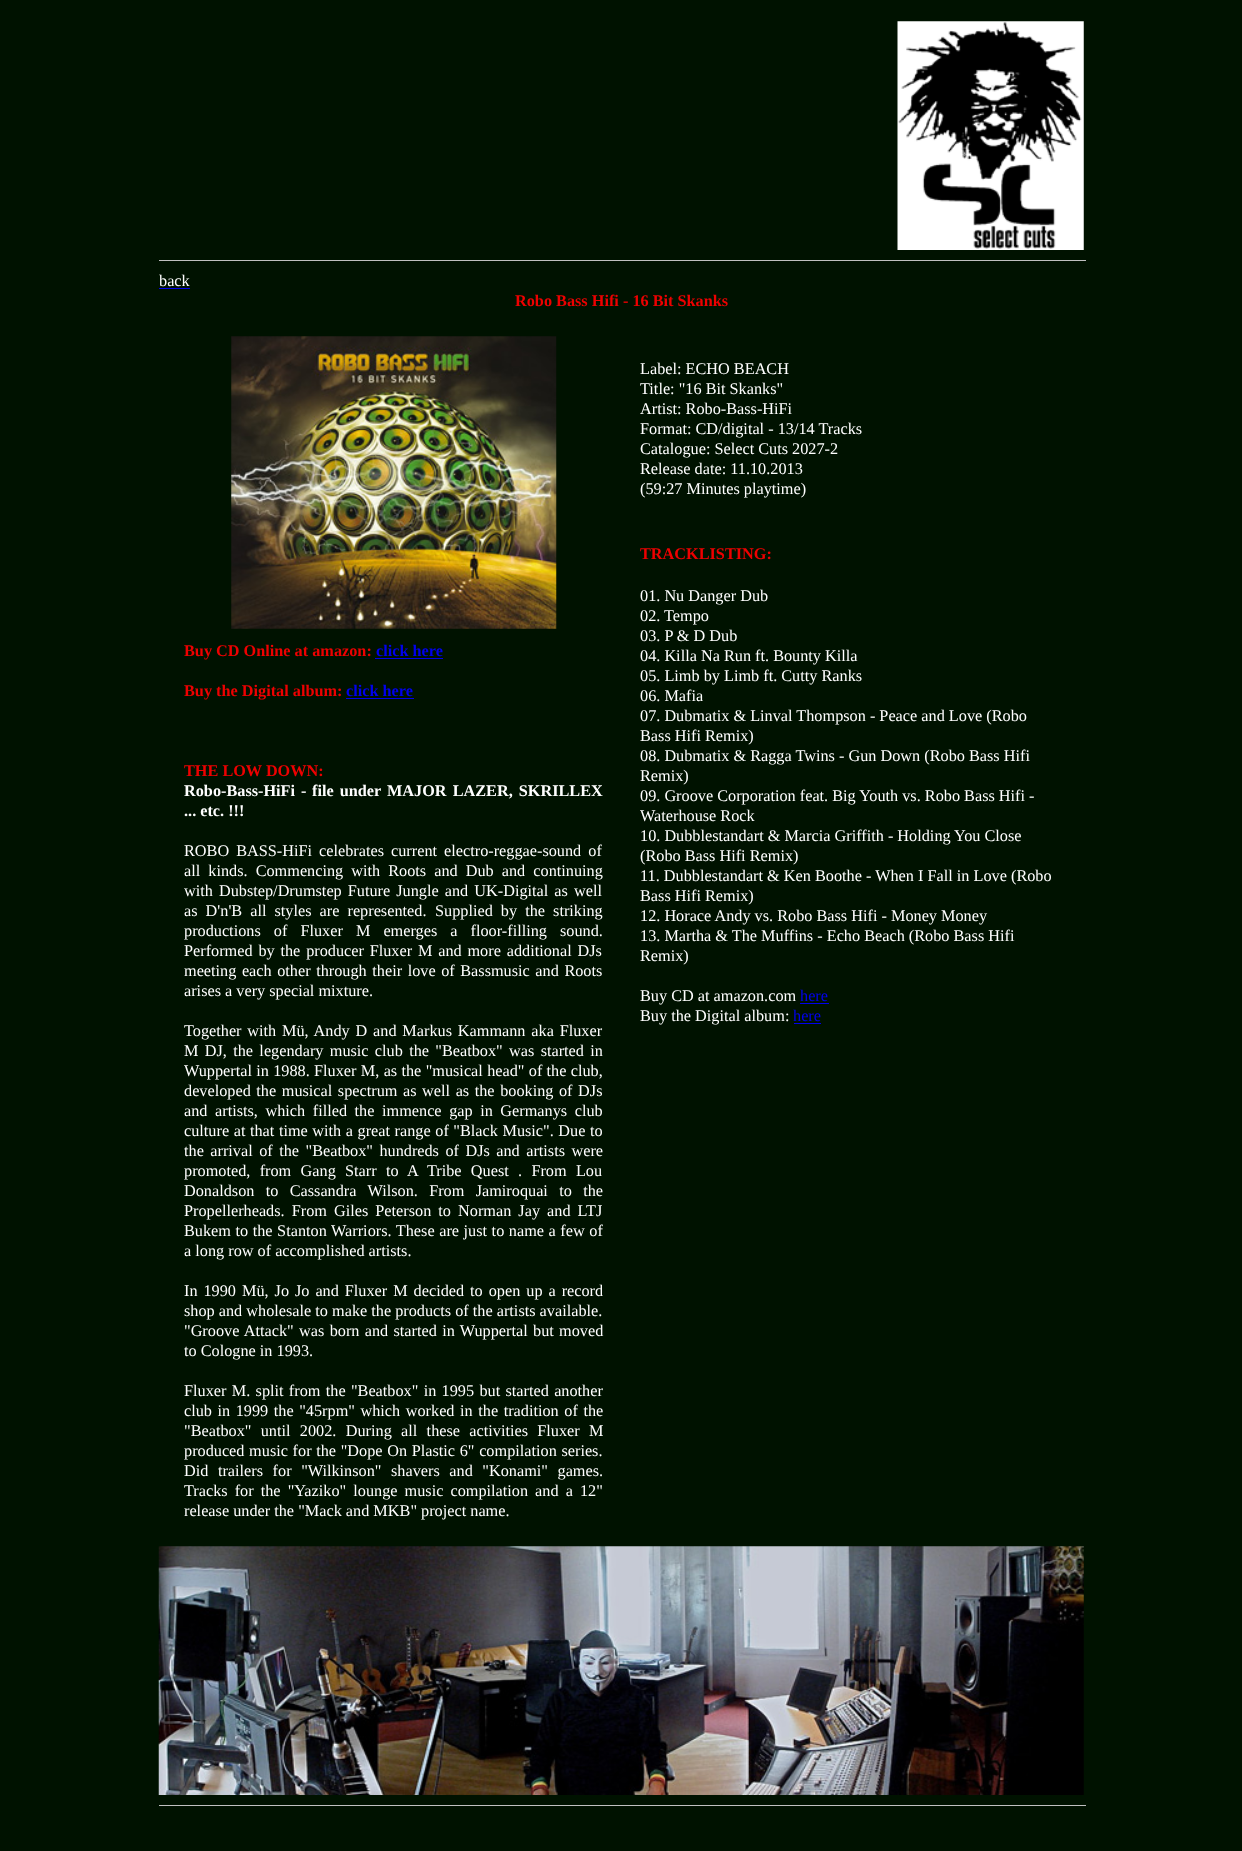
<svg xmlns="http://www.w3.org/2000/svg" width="1242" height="1851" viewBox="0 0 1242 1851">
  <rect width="100%" height="100%" fill="#001200"/>
  <image x="897" y="21" width="187" height="229" href="img/1.png"/>
  <path d="M159 260h927v1H159z" fill="#c0c0c0"/>
  <path d="M159 288h31v1H159z" fill="#00e"/>
  <image x="231" y="336" width="326" height="293" href="img/2.png"/>
  <path d="M375 658h68v1H375z" fill="#00e"/>
  <path d="M346 698h68v1H346z" fill="#00e"/>
  <path d="M800 1003h29v1H800z" fill="#00e"/>
  <path d="M794 1023h27v1H794z" fill="#00e"/>
  <image x="158" y="1546" width="926" height="249" href="img/3.png"/>
  <path d="M159 1805h927v1H159z" fill="#c0c0c0"/>
  <text x="159" y="286" font-family="Liberation Serif" font-size="16.25" fill="#fff">back</text>
  <g font-family="Liberation Serif" font-size="16.25" font-weight="bold" fill="#e00">
    <text x="515" y="306">Robo Bass Hifi - 16 Bit Skanks</text>
    <text x="184" y="656">Buy CD Online at amazon:</text>
  </g>
  <text x="376" y="656" font-family="Liberation Serif" font-size="16.25" font-weight="bold" fill="#00e">click here</text>
  <text x="184" y="696" font-family="Liberation Serif" font-size="16.25" font-weight="bold" fill="#e00">Buy the Digital album:</text>
  <text x="346" y="696" font-family="Liberation Serif" font-size="16.25" font-weight="bold" fill="#00e">click here</text>
  <text x="184" y="776" font-family="Liberation Serif" font-size="16.25" font-weight="bold" fill="#e00">THE LOW DOWN:</text>
  <g font-family="Liberation Serif" font-size="16.25" font-weight="bold" fill="#fff">
    <text x="184" y="796" word-spacing="2">Robo-Bass-HiFi -</text>
    <text x="312" y="796" word-spacing="2">file under MAJOR LAZER, SKRILLEX</text>
    <text x="184" y="816">... etc. !!!</text>
  </g>
  <g font-family="Liberation Serif" font-size="16.25" fill="#fff">
    <text x="184" y="856" word-spacing="3">ROBO BASS-HiFi</text>
    <text x="319" y="856" word-spacing="3">celebrates current electro-reggae-sound of</text>
    <text x="184" y="876" word-spacing="4">all kinds. Commencing with Roots and Dub and continuing</text>
    <text x="184" y="896" word-spacing="2">with Dubstep/Drumstep Future Jungle and UK-Digital as well</text>
    <text x="184" y="916" word-spacing="4">as D'n'B all styles are represented.</text>
    <text x="435" y="916" word-spacing="4">Supplied by the striking</text>
    <text x="184" y="936" word-spacing="9">productions of Fluxer M emerges a floor-filling sound.</text>
    <text x="184" y="956" word-spacing="1.75">Performed by the producer Fluxer M and more additional DJs</text>
    <text x="184" y="976" word-spacing="1.5">meeting each other through their love of Bassmusic and Roots</text>
    <text x="184" y="996">arises a very special mixture.</text>
    <text x="184" y="1036" word-spacing="1.75">Together with Mü, Andy D and Markus Kammann aka Fluxer</text>
    <text x="184" y="1056" word-spacing="2.25">M DJ, the legendary music club the "Beatbox" was started in</text>
    <text x="184" y="1076" word-spacing="0.25">Wuppertal in 1988. Fluxer M, as the "musical head" of the club,</text>
    <text x="184" y="1096" word-spacing="1.5">developed the musical spectrum as well as the booking of DJs</text>
    <text x="184" y="1116" word-spacing="3.5">and artists, which filled the immence gap in Germanys club</text>
    <text x="184" y="1136" word-spacing="0.5">culture at that time with a great range of "Black Music". Due to</text>
    <text x="184" y="1156" word-spacing="2.4">the arrival of the "Beatbox" hundreds of DJs and artists were</text>
    <text x="184" y="1176" word-spacing="5.25">promoted, from Gang Starr to A Tribe Quest . From Lou</text>
    <text x="184" y="1196" word-spacing="7.25">Donaldson to Cassandra Wilson. From Jamiroquai to the</text>
    <text x="184" y="1216" word-spacing="3">Propellerheads. From Giles Peterson to Norman Jay and LTJ</text>
    <text x="184" y="1236" word-spacing="0.5">Bukem to the Stanton Warriors. These are just to name a few of</text>
    <text x="184" y="1256">a long row of accomplished artists.</text>
    <text x="184" y="1296" word-spacing="1.9">In 1990 Mü, Jo Jo and Fluxer M decided to open up a record</text>
    <text x="184" y="1316">shop and wholesale to make the products of the artists available.</text>
    <text x="184" y="1336" word-spacing="1.25">"Groove Attack" was born and started in Wuppertal but moved</text>
    <text x="184" y="1356">to Cologne in 1993.</text>
    <text x="184" y="1396" word-spacing="1.25">Fluxer M. split from the "Beatbox" in 1995 but started another</text>
    <text x="184" y="1416" word-spacing="1.5">club in 1999 the "45rpm" which worked in the tradition of the</text>
    <text x="184" y="1436" word-spacing="5.25">"Beatbox" until 2002. During all these activities Fluxer M</text>
    <text x="184" y="1456" word-spacing="0.6">produced music for the "Dope On Plastic 6" compilation series.</text>
    <text x="184" y="1476" word-spacing="5.5">Did trailers for "Wilkinson" shavers and "Konami" games.</text>
    <text x="184" y="1496" word-spacing="3">Tracks for the "Yaziko" lounge music compilation and a 12"</text>
    <text x="184" y="1516">release under the "Mack and MKB" project name.</text>
    <text x="640" y="374">Label: ECHO BEACH</text>
    <text x="640" y="394">Title: "16 Bit Skanks"</text>
    <text x="640" y="414">Artist: Robo-Bass-HiFi</text>
    <text x="640" y="434">Format: CD/digital - 13/14 Tracks</text>
    <text x="640" y="454">Catalogue: Select Cuts 2027-2</text>
    <text x="640" y="474">Release date: 11.10.2013</text>
    <text x="640" y="494">(59:27 Minutes playtime)</text>
  </g>
  <text x="640" y="559" font-family="Liberation Serif" font-size="16.25" font-weight="bold" fill="#e00">TRACKLISTING:</text>
  <g font-family="Liberation Serif" font-size="16.25" fill="#fff">
    <text x="640" y="601">01. Nu Danger Dub</text>
    <text x="640" y="621">02. Tempo</text>
    <text x="640" y="641">03. P &amp; D Dub</text>
    <text x="640" y="661">04. Killa Na Run ft. Bounty Killa</text>
    <text x="640" y="681">05. Limb by Limb ft. Cutty Ranks</text>
    <text x="640" y="701">06. Mafia</text>
    <text x="640" y="721">07. Dubmatix &amp; Linval Thompson - Peace and Love (Robo</text>
    <text x="640" y="741">Bass Hifi Remix)</text>
    <text x="640" y="761">08. Dubmatix &amp; Ragga Twins - Gun Down (Robo Bass Hifi</text>
    <text x="640" y="781">Remix)</text>
    <text x="640" y="801">09. Groove Corporation feat. Big Youth vs. Robo Bass Hifi -</text>
    <text x="640" y="821">Waterhouse Rock</text>
    <text x="640" y="841">10. Dubblestandart &amp; Marcia Griffith - Holding You Close</text>
    <text x="640" y="861">(Robo Bass Hifi Remix)</text>
    <text x="640" y="881">11. Dubblestandart &amp; Ken Boothe - When I Fall in Love (Robo</text>
    <text x="640" y="901">Bass Hifi Remix)</text>
    <text x="640" y="921">12. Horace Andy vs. Robo Bass Hifi - Money Money</text>
    <text x="640" y="941">13. Martha &amp; The Muffins - Echo Beach (Robo Bass Hifi</text>
    <text x="640" y="961">Remix)</text>
    <text x="640" y="1001">Buy CD at amazon.com</text>
  </g>
  <text x="800" y="1001" font-family="Liberation Serif" font-size="16.25" fill="#00e">here</text>
  <text x="640" y="1021" font-family="Liberation Serif" font-size="16.25" fill="#fff">Buy the Digital album:</text>
  <text x="793" y="1021" font-family="Liberation Serif" font-size="16.25" fill="#00e">here</text>
</svg>
